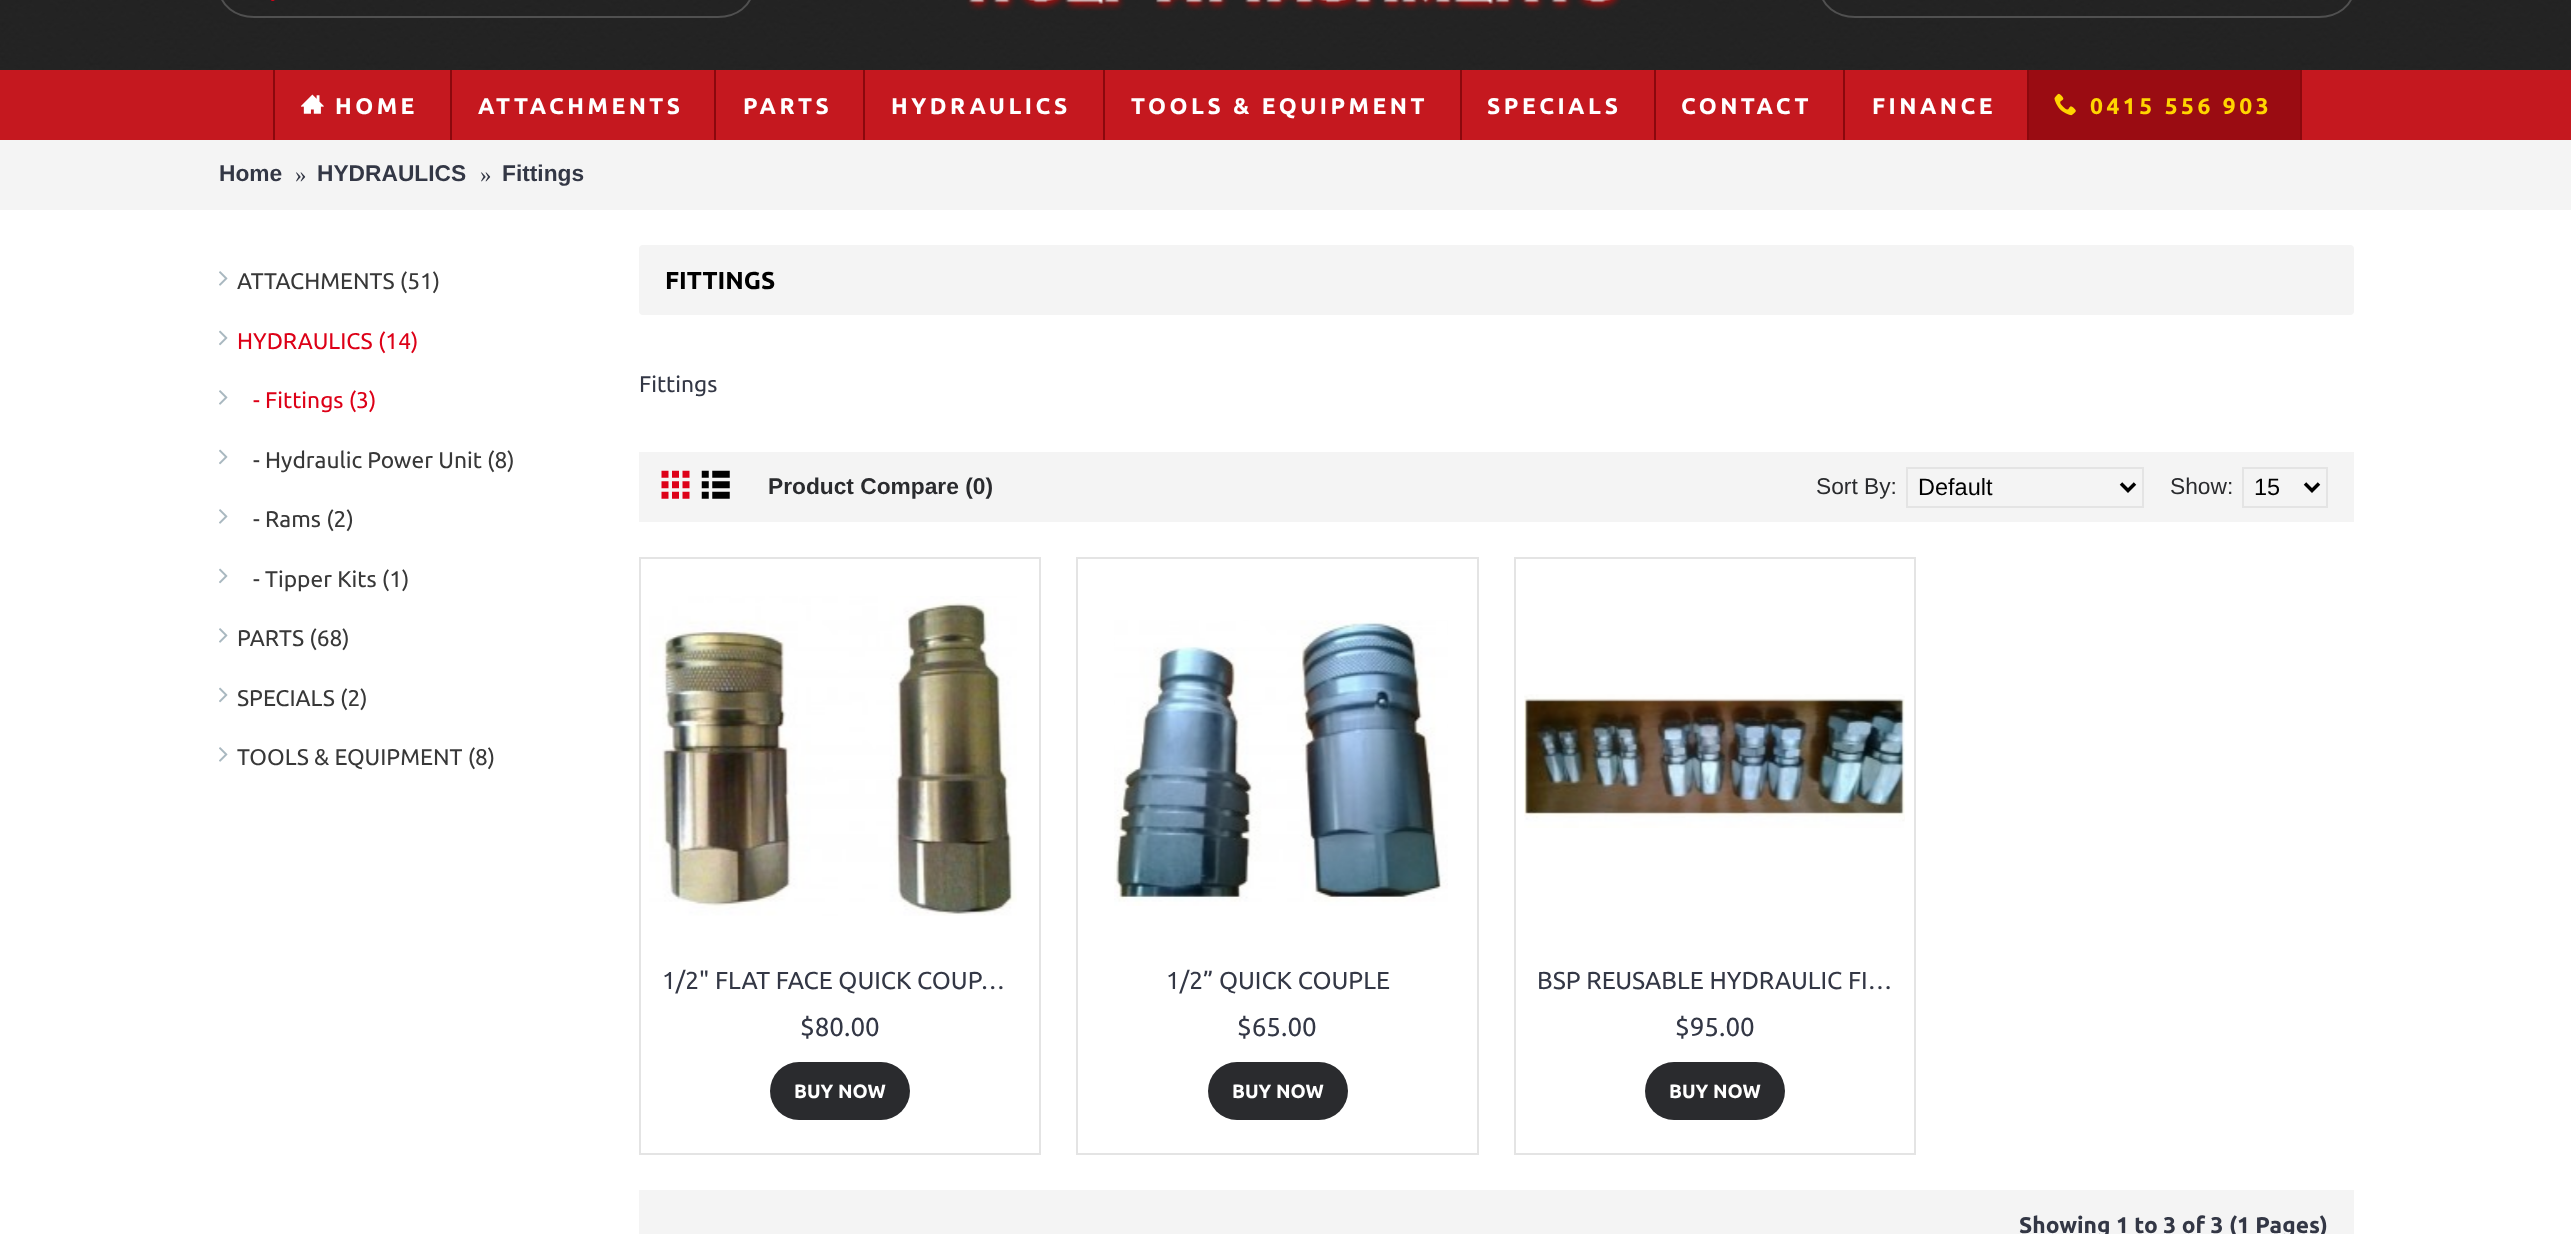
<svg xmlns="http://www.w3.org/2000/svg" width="2571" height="1234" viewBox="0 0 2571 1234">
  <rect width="100%" height="100%" fill="#fff"/>
  <image x="0" y="0" width="2571" height="70" href="img/1.png"/>
  <path d="M0 0h2571v70H0z" fill="#000000d9"/>
  <path d="M0 70h2571v70H0z" fill="#c5181f"/>
  <rect x="220" y="-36" width="532" height="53" rx="34" fill="none" stroke="#505050" stroke-width="2"/>
  <image x="270" y="0" width="5" height="1" href="img/2.png"/>
  <image x="966" y="0" width="655" height="11" href="img/3.png"/>
  <rect x="1821" y="-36" width="532" height="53" rx="34" fill="none" stroke="#505050" stroke-width="2"/>
  <path d="M273 70h2v70H273z" fill="#8b080d"/>
  <image x="301" y="94" width="23" height="20" href="img/4.png"/>
  <path d="M450 70h2v70H450z" fill="#8b080d"/>
  <path d="M714 70h2v70H714z" fill="#8b080d"/>
  <path d="M863 70h2v70H863z" fill="#8b080d"/>
  <path d="M1103 70h2v70H1103z" fill="#8b080d"/>
  <path d="M1460 70h2v70H1460z" fill="#8b080d"/>
  <path d="M1654 70h2v70H1654z" fill="#8b080d"/>
  <path d="M1843 70h2v70H1843z" fill="#8b080d"/>
  <path d="M2029 70h271v70H2029z" fill="#9a0c12"/>
  <path d="M2300 70h2v70H2300z" fill="#8b080d"/>
  <path d="M2027 70h2v70H2027z" fill="#8b080d"/>
  <image x="2054" y="93" width="22" height="23" href="img/5.png"/>
  <path d="M0 140h2571v70H0z" fill="#f4f4f4"/>
  <image x="219" y="271" width="9" height="15" href="img/6.png"/>
  <image x="219" y="330" width="9" height="16" href="img/7.png"/>
  <image x="219" y="390" width="9" height="15" href="img/6.png"/>
  <image x="219" y="449" width="9" height="16" href="img/7.png"/>
  <image x="219" y="509" width="9" height="15" href="img/6.png"/>
  <image x="219" y="568" width="9" height="16" href="img/7.png"/>
  <image x="219" y="628" width="9" height="15" href="img/6.png"/>
  <image x="219" y="687" width="9" height="16" href="img/7.png"/>
  <image x="219" y="747" width="9" height="15" href="img/6.png"/>
  <rect x="639" y="245" width="1715" height="70" rx="4" fill="#f4f4f4"/>
  <path d="M639 452h1715v70H639z" fill="#f4f4f4"/>
  <image x="661" y="470" width="29" height="29" href="img/8.png"/>
  <image x="701" y="470" width="29" height="29" href="img/9.png"/>
  <path d="M1907 468h236v39H1907z" fill="none" stroke="#e4e4e4" stroke-width="2"/>
  <path d="M2121 483.5L2128 490.5L2135 483.5" fill="none" stroke="#000" stroke-width="3.5"/>
  <path d="M2243 468h84v39H2243z" fill="none" stroke="#e4e4e4" stroke-width="2"/>
  <path d="M2305 483.5L2312 490.5L2319 483.5" fill="none" stroke="#000" stroke-width="3.5"/>
  <path d="M640 558h400v596H640z" fill="none" stroke="#e4e4e4" stroke-width="2"/>
  <image x="649" y="596" width="368" height="320" href="img/10.png"/>
  <rect x="770" y="1062" width="140" height="58" rx="29" fill="#2a2b2e"/>
  <path d="M1077 558h401v596H1077z" fill="none" stroke="#e4e4e4" stroke-width="2"/>
  <image x="1114" y="620" width="334" height="286" href="img/11.png"/>
  <rect x="1208" y="1062" width="140" height="58" rx="29" fill="#2a2b2e"/>
  <path d="M1515 558h400v596H1515z" fill="none" stroke="#e4e4e4" stroke-width="2"/>
  <image x="1524" y="694" width="381" height="134" href="img/12.png"/>
  <rect x="1645" y="1062" width="140" height="58" rx="29" fill="#2a2b2e"/>
  <path d="M639 1190h1715v44H639z" fill="#f4f4f4"/>
  <g font-family="Ubuntu" font-size="22.75" font-weight="bold" letter-spacing="3.5" fill="#fff">
    <text x="335" y="114">HOME</text>
    <text x="478" y="114">ATTACHMENTS</text>
    <text x="743" y="114">PARTS</text>
    <text x="891" y="114">HYDRAULICS</text>
    <text x="1131" y="114">TOOLS &amp; EQUIPMENT</text>
    <text x="1487" y="114">SPECIALS</text>
    <text x="1681" y="114">CONTACT</text>
    <text x="1872" y="114">FINANCE</text>
  </g>
  <text x="2090" y="114" font-family="Ubuntu" font-size="22.75" font-weight="bold" letter-spacing="3.5" fill="#ffd500">0415 556 903</text>
  <text x="219" y="181" font-family="Liberation Sans" font-size="22.75" font-weight="bold" fill="#333745">Home</text>
  <text x="295" y="182" font-family="Liberation Serif" font-size="22.75" fill="#333745">»</text>
  <text x="317" y="181" font-family="Liberation Sans" font-size="22.75" font-weight="bold" fill="#333745">HYDRAULICS</text>
  <text x="480" y="182" font-family="Liberation Serif" font-size="22.75" fill="#333745">»</text>
  <text x="502" y="181" font-family="Liberation Sans" font-size="22.75" font-weight="bold" fill="#333745">Fittings</text>
  <text x="237" y="289" font-family="Ubuntu" font-size="22.75" fill="#383838">ATTACHMENTS (51)</text>
  <g font-family="Ubuntu" font-size="22.75" fill="#dd0017">
    <text x="237" y="349">HYDRAULICS (14)</text>
    <text x="253" y="408">- Fittings (3)</text>
  </g>
  <g font-family="Ubuntu" font-size="22.75" fill="#383838">
    <text x="253" y="468">- Hydraulic Power Unit (8)</text>
    <text x="253" y="527">- Rams (2)</text>
    <text x="253" y="587">- Tipper Kits (1)</text>
    <text x="237" y="646">PARTS (68)</text>
    <text x="237" y="706">SPECIALS (2)</text>
    <text x="237" y="765">TOOLS &amp; EQUIPMENT (8)</text>
  </g>
  <text x="665" y="289" font-family="Ubuntu" font-size="24.5" font-weight="bold" fill="#000">FITTINGS</text>
  <text x="639" y="392" font-family="Ubuntu" font-size="22.75" fill="#333745">Fittings</text>
  <text x="768" y="494" font-family="Liberation Sans" font-size="22.75" font-weight="bold" fill="#2a2b2e">Product Compare (0)</text>
  <text x="1816" y="494" font-family="Liberation Sans" font-size="22.75" fill="#2a2b2e">Sort By:</text>
  <text x="1918" y="495" font-family="Liberation Sans" font-size="23.5" fill="#000">Default</text>
  <text x="2170" y="494" font-family="Liberation Sans" font-size="22.75" fill="#2a2b2e">Show:</text>
  <text x="2254" y="495" font-family="Liberation Sans" font-size="23.5" fill="#000">15</text>
  <text x="662" y="989" font-family="Ubuntu" font-size="24.5" fill="#333745">1/2" FLAT FACE QUICK COUP…</text>
  <text x="800" y="1036" font-family="Ubuntu" font-size="26" fill="#333745">$80.00</text>
  <text x="794" y="1098" font-family="Ubuntu" font-size="19.25" font-weight="bold" fill="#fff">BUY NOW</text>
  <text x="1166" y="989" font-family="Ubuntu" font-size="24.5" fill="#333745">1/2” QUICK COUPLE</text>
  <text x="1237" y="1036" font-family="Ubuntu" font-size="26" fill="#333745">$65.00</text>
  <text x="1232" y="1098" font-family="Ubuntu" font-size="19.25" font-weight="bold" fill="#fff">BUY NOW</text>
  <text x="1537" y="989" font-family="Ubuntu" font-size="24.5" fill="#333745">BSP REUSABLE HYDRAULIC FI…</text>
  <text x="1675" y="1036" font-family="Ubuntu" font-size="26" fill="#333745">$95.00</text>
  <text x="1669" y="1098" font-family="Ubuntu" font-size="19.25" font-weight="bold" fill="#fff">BUY NOW</text>
  <text x="2019" y="1233" font-family="Ubuntu" font-size="22.75" font-weight="bold" fill="#333745">Showing 1 to 3 of 3 (1 Pages)</text>
</svg>
